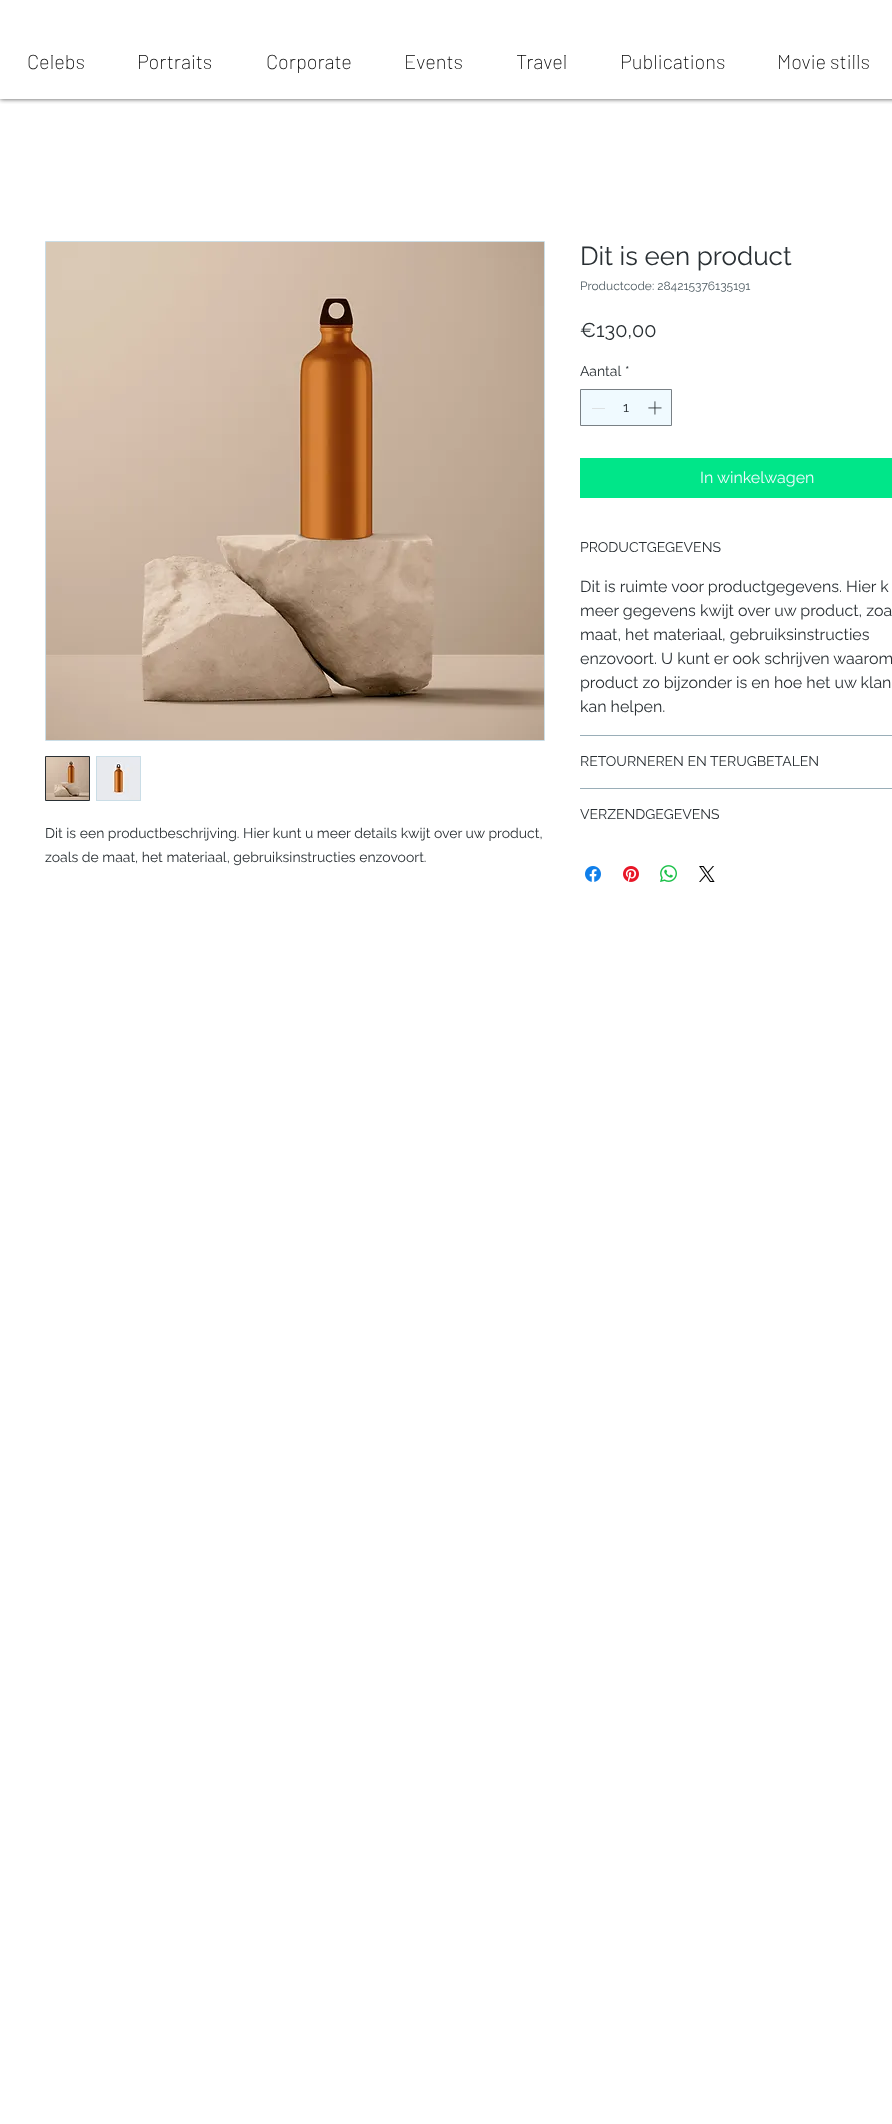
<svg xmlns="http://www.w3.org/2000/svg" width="892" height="2124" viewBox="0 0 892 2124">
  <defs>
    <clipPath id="clip1"><path d="M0 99h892v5H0z"/></clipPath>
  </defs>
  <rect width="100%" height="100%" fill="#fff"/>
  <g clip-path="url(#clip1)">
    <path d="M0 0h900v99H0z" fill="#000000b3" filter="blur(2.5px)"/>
  </g>
  <path d="M580.5 389.5h91v36H580.5z" fill="#f0faff" stroke="#798085"/>
  <path d="M592 408h13v1H592z" fill="#dce1e3"/>
  <image x="648" y="401" width="14" height="14" href="img/1.png"/>
  <path d="M580 458h312v40H580z" fill="#00e689"/>
  <path d="M580 735h312v1H580z" fill="#9aaeb8"/>
  <path d="M580 788h312v1H580z" fill="#9aaeb8"/>
  <image x="585" y="866" width="16" height="16" href="img/2.png"/>
  <image x="623" y="866" width="16" height="16" href="img/3.png"/>
  <image x="660" y="865" width="17" height="17" href="img/4.png"/>
  <image x="699" y="866" width="16" height="16" href="img/5.png"/>
  <path d="M45.5 241.5h499v499H45.5z" fill="none" stroke="#cadde6"/>
  <image x="46" y="242" width="498" height="498" href="img/6.png"/>
  <path d="M45.5 756.5h44v44H45.5z" fill="none" stroke="#292f33"/>
  <image x="46" y="757" width="43" height="43" href="img/7.png"/>
  <path d="M96 756h45v45H96z" fill="#cadde6"/>
  <image x="97" y="757" width="43" height="43" href="img/8.png"/>
  <g font-family="Barlow" font-size="20" font-weight="200" fill="#000">
    <text x="27" y="69">Celebs</text>
    <text x="137" y="69">Portraits</text>
    <text x="266" y="69">Corporate</text>
    <text x="404" y="69">Events</text>
    <text x="516" y="69">Travel</text>
    <text x="620" y="69">Publications</text>
    <text x="777" y="69">Movie stills</text>
  </g>
  <text x="580" y="265" font-family="Raleway" font-size="26" fill="#292f33">Dit is een product</text>
  <text x="580" y="290" font-family="Raleway" font-size="12" fill="#515e65">Productcode: 284215376135191</text>
  <text x="580" y="337" font-family="Raleway" font-size="20" fill="#292f33">€130,00</text>
  <g font-family="Raleway" font-size="14" fill="#292f33">
    <text x="580" y="376">Aantal</text>
    <text x="625" y="376">*</text>
    <text x="623" y="412">1</text>
  </g>
  <text x="700" y="483" font-family="Raleway" font-size="16" fill="#f0faff">In winkelwagen</text>
  <text x="580" y="552" font-family="Raleway" font-size="14" fill="#292f33">PRODUCTGEGEVENS</text>
  <g font-family="Raleway" font-size="16" fill="#292f33">
    <text x="580" y="592">Dit is ruimte voor productgegevens. Hier k</text>
    <text x="580" y="616">meer gegevens kwijt over uw product, zoa</text>
    <text x="580" y="640">maat, het materiaal, gebruiksinstructies</text>
    <text x="580" y="664">enzovoort. U kunt er ook schrijven waarom</text>
    <text x="580" y="688">product zo bijzonder is en hoe het uw klan</text>
    <text x="580" y="712">kan helpen.</text>
  </g>
  <g font-family="Raleway" font-size="14" fill="#292f33">
    <text x="580" y="766">RETOURNEREN EN TERUGBETALEN</text>
    <text x="580" y="819">VERZENDGEGEVENS</text>
    <text x="45" y="838">Dit is een productbeschrijving. Hier kunt u meer details kwijt over uw product,</text>
    <text x="45" y="862">zoals de maat, het materiaal, gebruiksinstructies enzovoort.</text>
  </g>
</svg>
